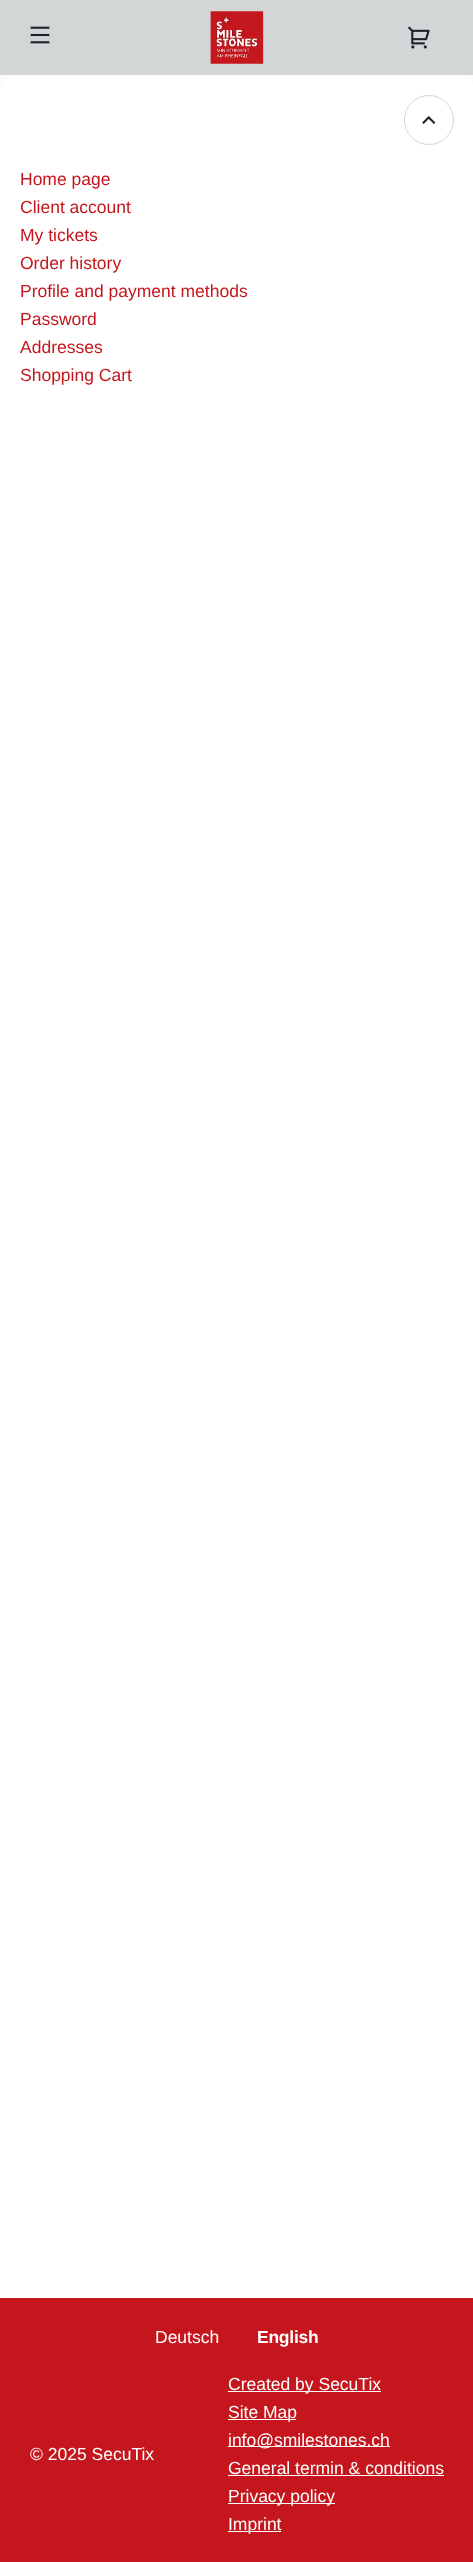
<svg xmlns="http://www.w3.org/2000/svg" width="473" height="2562" viewBox="0 0 473 2562">
  <rect width="100%" height="100%" fill="#fff"/>
  <path d="M0 18h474v75H0z" fill="#7a7a7a14" filter="blur(19px)"/>
  <path d="M0 0h473v75H0z" fill="#d3d6d7"/>
  <image x="210" y="11" width="54" height="53" href="img/1.png"/>
  <image x="30" y="26" width="20" height="18" href="img/2.png"/>
  <image x="408" y="26" width="22" height="23" href="img/3.png"/>
  <rect y="75" width="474" height="334" rx="15" fill="#fff"/>
  <circle cx="429" cy="120" r="24.5" fill="none" stroke="#d5d5d9"/>
  <image x="422" y="116" width="14" height="8" href="img/4.png"/>
  <path d="M0 2298h473v264H0z" fill="#c5161d"/>
  <path d="M228 2391h153v1H228z" fill="#fff"/>
  <path d="M228 2419h68v1H228z" fill="#fff"/>
  <path d="M228 2446h162v1H228z" fill="#fff"/>
  <path d="M228 2475h216v1H228z" fill="#fff"/>
  <path d="M228 2503h107v1H228z" fill="#fff"/>
  <path d="M228 2531h53v1H228z" fill="#fff"/>
  <g font-family="Liberation Sans" font-size="17.5" fill="#c5161d">
    <text x="20" y="185">Home page</text>
    <text x="20" y="213">Client account</text>
    <text x="20" y="241">My tickets</text>
    <text x="20" y="269">Order history</text>
    <text x="20" y="297">Profile and payment methods</text>
    <text x="20" y="325">Password</text>
    <text x="20" y="353">Addresses</text>
    <text x="20" y="381">Shopping Cart</text>
  </g>
  <text x="155" y="2343" font-family="Liberation Sans" font-size="17.5" fill="#fff">Deutsch</text>
  <text x="257" y="2343" font-family="Liberation Sans" font-size="17.5" font-weight="bold" letter-spacing="-0.25" fill="#fff">English</text>
  <g font-family="Liberation Sans" font-size="17.5" fill="#fff">
    <text x="30" y="2460">© 2025 SecuTix</text>
    <text x="228" y="2390">Created by SecuTix</text>
    <text x="228" y="2418">Site Map</text>
    <text x="228" y="2446">info@smilestones.ch</text>
    <text x="228" y="2474">General termin &amp; conditions</text>
    <text x="228" y="2502">Privacy policy</text>
    <text x="228" y="2530">Imprint</text>
  </g>
</svg>
